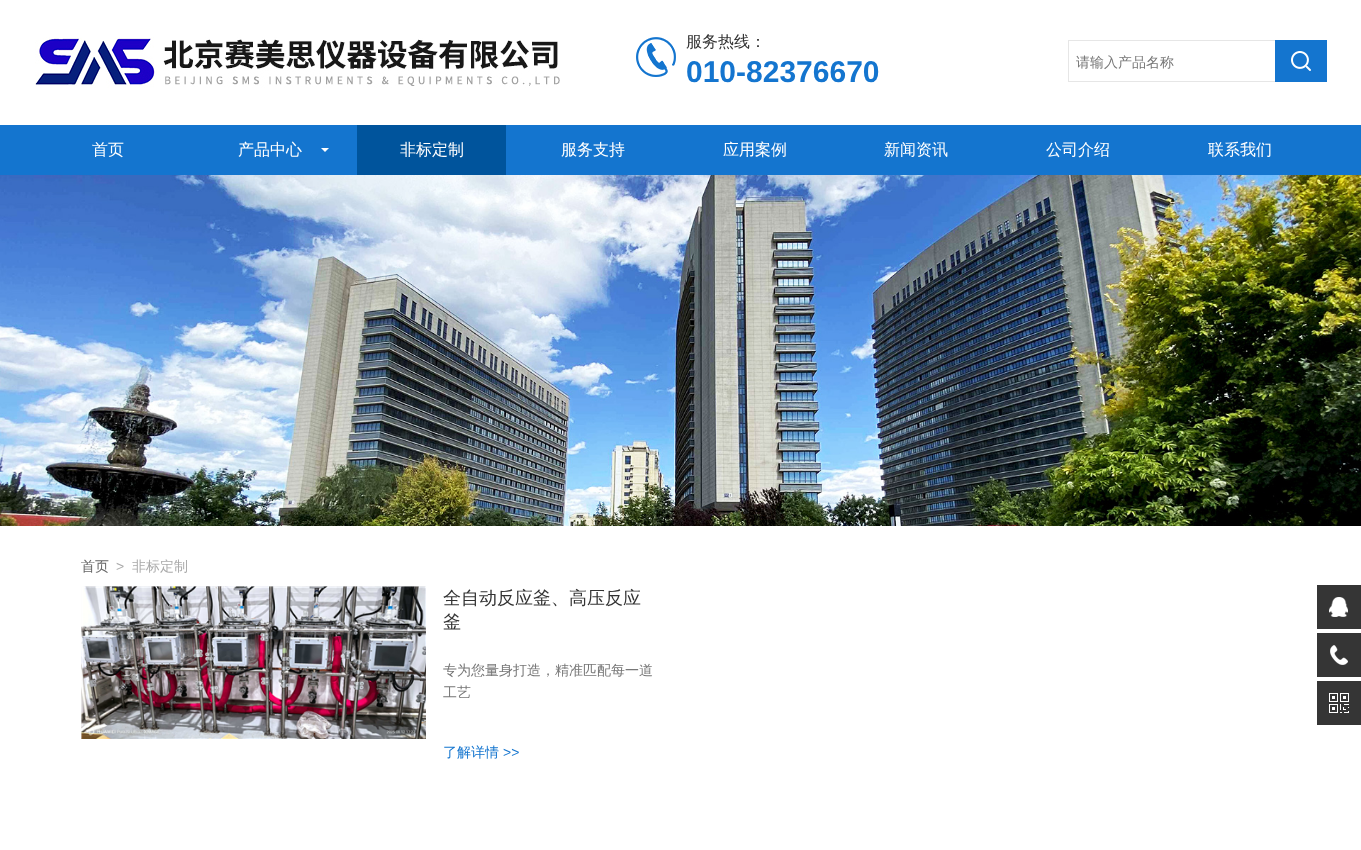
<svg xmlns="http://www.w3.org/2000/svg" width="1361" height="850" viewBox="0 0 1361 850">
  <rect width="100%" height="100%" fill="#fff"/>
  <image x="35" y="37" width="525" height="51" href="img/1.png"/>
  <image x="636" y="37" width="40" height="40" href="img/2.png"/>
  <path d="M1068 40h207v1H1068z" fill="#e6e6e6"/>
  <path d="M1068 81h207v1H1068z" fill="#e6e6e6"/>
  <path d="M1068 40h1v42H1068z" fill="#e6e6e6"/>
  <path d="M1275 40h52v42H1275z" fill="#1475cf"/>
  <image x="1291" y="51" width="20" height="20" href="img/3.png"/>
  <path d="M0 125h1361v50H0z" fill="#1475cf"/>
  <path d="M321 148H329L325 152Z" fill="#fff"/>
  <path d="M357 125h149v50H357z" fill="#00549c"/>
  <image x="0" y="175" width="1361" height="351" href="img/4.png"/>
  <image x="81" y="586" width="345" height="153" href="img/5.png"/>
  <path d="M1317 585h44v44H1317z" fill="#353535"/>
  <image x="1329" y="597" width="19" height="20" href="img/6.png"/>
  <path d="M1317 633h44v44H1317z" fill="#353535"/>
  <image x="1330" y="645" width="18" height="20" href="img/7.png"/>
  <path d="M1317 681h44v44H1317z" fill="#353535"/>
  <image x="1329" y="693" width="20" height="20" href="img/8.png"/>
  <text x="686" y="47" font-family="WenQuanYi Zen Hei" font-size="16" font-weight="500" fill="#333">服务热线：</text>
  <text x="686" y="82" font-family="Liberation Sans" font-size="30" font-weight="bold" fill="#1475cf">010-82376670</text>
  <text x="1076" y="67" font-family="WenQuanYi Zen Hei" font-size="14" font-weight="500" fill="#777">请输入产品名称</text>
  <g font-family="WenQuanYi Zen Hei" font-size="16" font-weight="500" fill="#fff">
    <text x="92" y="155">首页</text>
    <text x="238" y="155">产品中心</text>
    <text x="400" y="155">非标定制</text>
    <text x="561" y="155">服务支持</text>
    <text x="723" y="155">应用案例</text>
    <text x="884" y="155">新闻资讯</text>
    <text x="1046" y="155">公司介绍</text>
    <text x="1208" y="155">联系我们</text>
  </g>
  <text x="81" y="571" font-family="WenQuanYi Zen Hei" font-size="14" font-weight="500" fill="#666">首页</text>
  <text x="116" y="571" font-family="Liberation Sans" font-size="14" fill="#aaa">&gt;</text>
  <text x="132" y="571" font-family="WenQuanYi Zen Hei" font-size="14" font-weight="500" fill="#aaa">非标定制</text>
  <g font-family="WenQuanYi Zen Hei" font-size="18" font-weight="500" fill="#333">
    <text x="443" y="604">全自动反应釜、高压反应</text>
    <text x="443" y="628">釜</text>
  </g>
  <g font-family="WenQuanYi Zen Hei" font-size="14" font-weight="500" fill="#777">
    <text x="443" y="675">专为您量身打造，精准匹配每一道</text>
    <text x="443" y="697">工艺</text>
  </g>
  <text x="443" y="757" font-family="WenQuanYi Zen Hei" font-size="14" font-weight="500" fill="#1475cf">了解详情</text>
  <text x="503" y="757" font-family="Liberation Sans" font-size="14" fill="#1475cf">&gt;&gt;</text>
</svg>
